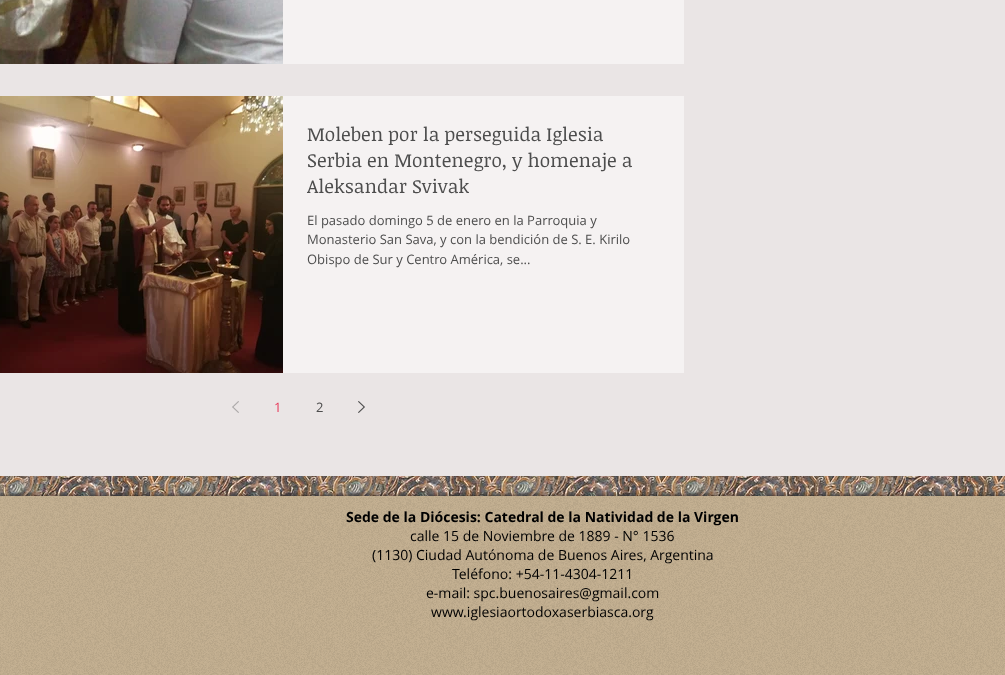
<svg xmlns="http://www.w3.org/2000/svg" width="1005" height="675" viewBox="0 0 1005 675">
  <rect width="100%" height="100%" fill="#eae5e5"/>
  <image x="0" y="0" width="283" height="64" href="img/1.png"/>
  <path d="M283 0h401v64H283z" fill="#f5f2f2"/>
  <image x="0" y="96" width="283" height="277" href="img/2.png"/>
  <path d="M283 96h401v277H283z" fill="#f5f2f2"/>
  <image x="232" y="401" width="7" height="12" href="img/3.png"/>
  <image x="358" y="401" width="7" height="12" href="img/4.png"/>
  <image x="0" y="476" width="1005" height="20" href="img/5.png"/>
  <path d="M0 496h1005v179H0z" fill="#000000b3" filter="blur(2.5px)"/>
  <path d="M0 496h1005v179H0z" fill="#c4b091"/>
  <image x="0" y="496" width="1005" height="179" href="img/6.png"/>
  <g font-family="Noticia Text" font-size="19" fill="#4d4d4d">
    <text x="307" y="141">Moleben por la perseguida Iglesia</text>
    <text x="307" y="167">Serbia en Montenegro, y homenaje a</text>
    <text x="307" y="193">Aleksandar Svivak</text>
  </g>
  <g font-family="Open Sans" font-size="13" fill="#4d4d4d">
    <text x="307" y="225">El pasado domingo 5 de enero en la Parroquia y</text>
    <text x="307" y="244">Monasterio San Sava, y con la bendición de S. E. Kirilo</text>
    <text x="307" y="264">Obispo de Sur y Centro América, se...</text>
  </g>
  <text x="274" y="412" font-family="Open Sans" font-size="13" fill="#e83556">1</text>
  <text x="316" y="412" font-family="Open Sans" font-size="13" fill="#4d4d4d">2</text>
  <text x="346" y="522" font-family="Open Sans" font-size="14" font-weight="bold" fill="#000">Sede de la Diócesis: Catedral de la Natividad de la Virgen</text>
  <g font-family="Open Sans" font-size="14" fill="#000">
    <text x="410" y="541">calle 15 de Noviembre de 1889 - N° 1536</text>
    <text x="372" y="560">(1130) Ciudad Autónoma de Buenos Aires, Argentina</text>
    <text x="452" y="579">Teléfono: +54-11-4304-1211</text>
    <text x="426" y="598">e-mail: spc.buenosaires@gmail.com</text>
    <text x="431" y="617">www.iglesiaortodoxaserbiasca.org</text>
  </g>
</svg>
